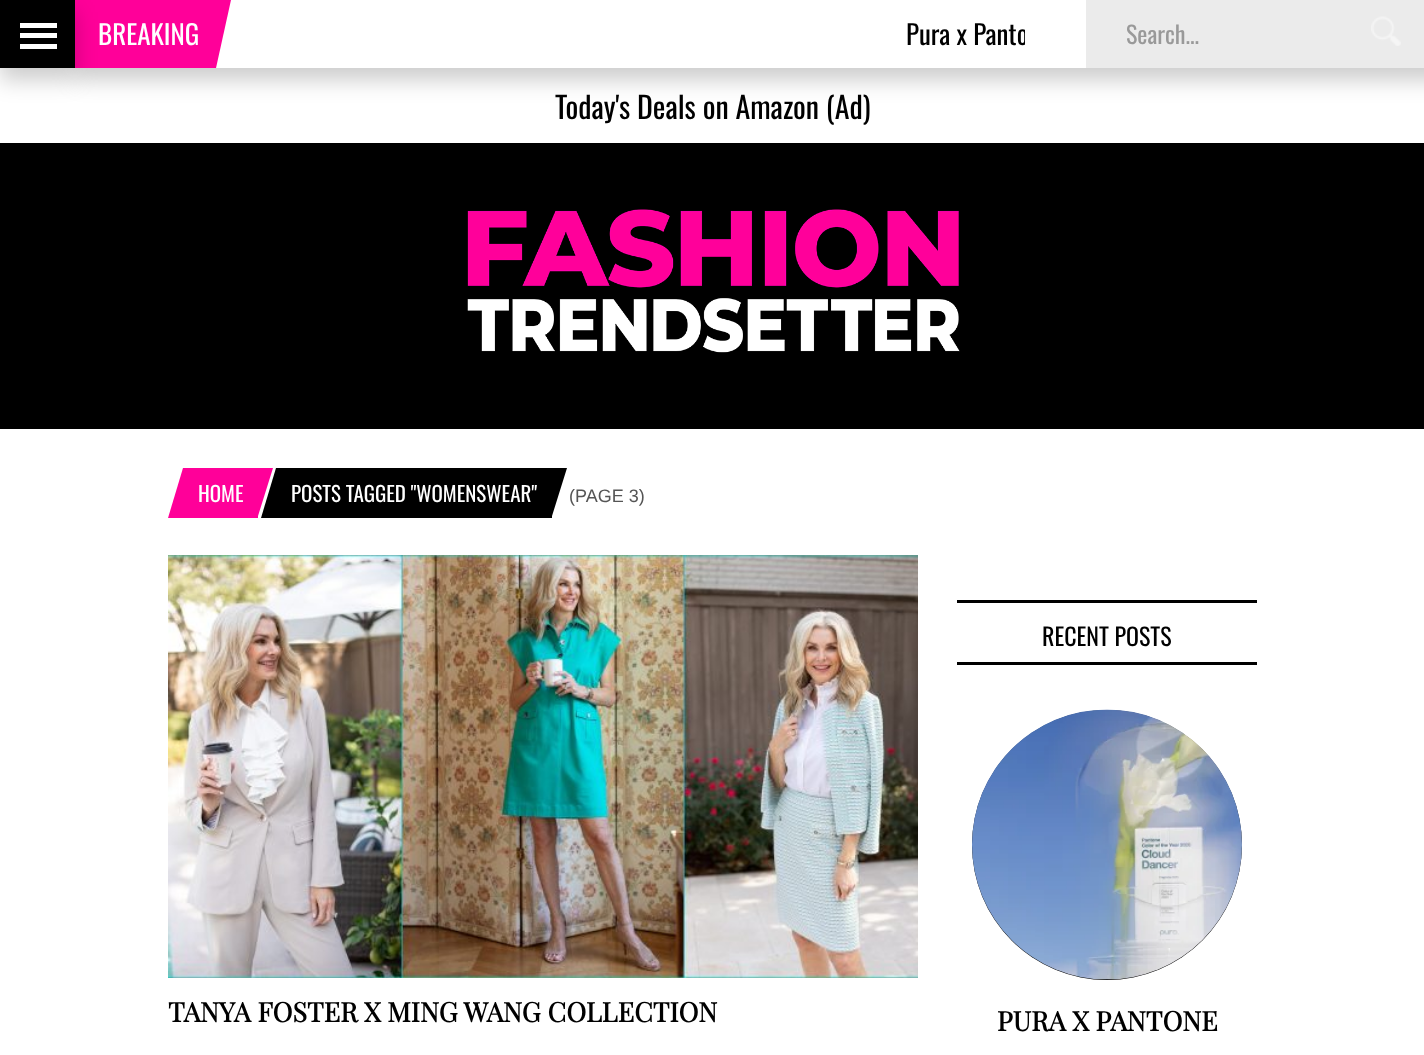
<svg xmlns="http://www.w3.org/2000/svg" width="1424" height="1055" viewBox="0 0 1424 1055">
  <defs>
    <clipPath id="clip1"><path d="M75 0h950v60H75z"/></clipPath>
  </defs>
  <rect width="100%" height="100%" fill="#fff"/>
  <path d="M75 12h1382v68H75z" fill="#00000033" filter="blur(11px)"/>
  <path d="M75 0h141v68H75z" fill="#f09"/>
  <path d="M0 12h75v68H0z" fill="#00000033" filter="blur(11px)"/>
  <path d="M0 0h75v68H0z" fill="#000"/>
  <path d="M20 23h37v5H20z" fill="#fff"/>
  <path d="M20 33h37v5H20z" fill="#fff"/>
  <path d="M20 44h37v5H20z" fill="#fff"/>
  <path d="M216 0h870v68H216z" fill="#fff"/>
  <path d="M216 68V0H231Z" fill="#f09"/>
  <path d="M1086 0h338v68H1086z" fill="#ebebeb"/>
  <image x="1371" y="16" width="30" height="30" href="img/1.png"/>
  <path d="M0 143h1424v286H0z" fill="#000"/>
  <image x="467" y="209" width="493" height="144" href="img/2.png"/>
  <path d="M183 468h75v50H183z" fill="#f09"/>
  <path d="M183 468V518H168Z" fill="#f09"/>
  <path d="M258 516V468H273Z" fill="#f09"/>
  <path d="M276 468h276v50H276z" fill="#000"/>
  <path d="M276 468V518H261Z" fill="#000"/>
  <path d="M552 516V468H567Z" fill="#000"/>
  <image x="168" y="555" width="750" height="423" href="img/3.png"/>
  <path d="M957 600h300v3H957z" fill="#000"/>
  <path d="M957 662h300v3H957z" fill="#000"/>
  <circle cx="1107" cy="845" r="135" fill="#000"/>
  <image x="972" y="709" width="270" height="271" href="img/4.png"/>
  <text x="98" y="45" font-family="Oswald" font-size="27" fill="#fff">BREAKING</text>
  <g clip-path="url(#clip1)">
    <text x="906" y="45" font-family="Oswald" font-size="27" fill="#000">Pura x Panto</text>
  </g>
  <text x="1126" y="44" font-family="Oswald" font-size="24" fill="#999">Search...</text>
  <text x="555" y="119" font-family="Oswald" font-size="30" fill="#000">Today's Deals on Amazon (Ad)</text>
  <g font-family="Oswald" font-size="21" fill="#fff">
    <text x="198" y="502">HOME</text>
    <text x="291" y="502">POSTS TAGGED "WOMENSWEAR"</text>
  </g>
  <text x="569" y="502" font-family="Liberation Sans" font-size="18" fill="#555">(PAGE 3)</text>
  <text x="168" y="1022" font-family="Playfair Display" font-size="27" font-weight="bold" fill="#000">TANYA FOSTER X MING WANG COLLECTION</text>
  <text x="1042" y="646" font-family="Oswald" font-size="24" fill="#000">RECENT POSTS</text>
  <text x="997" y="1031" font-family="Playfair Display" font-size="27" font-weight="bold" fill="#000">PURA X PANTONE</text>
</svg>
